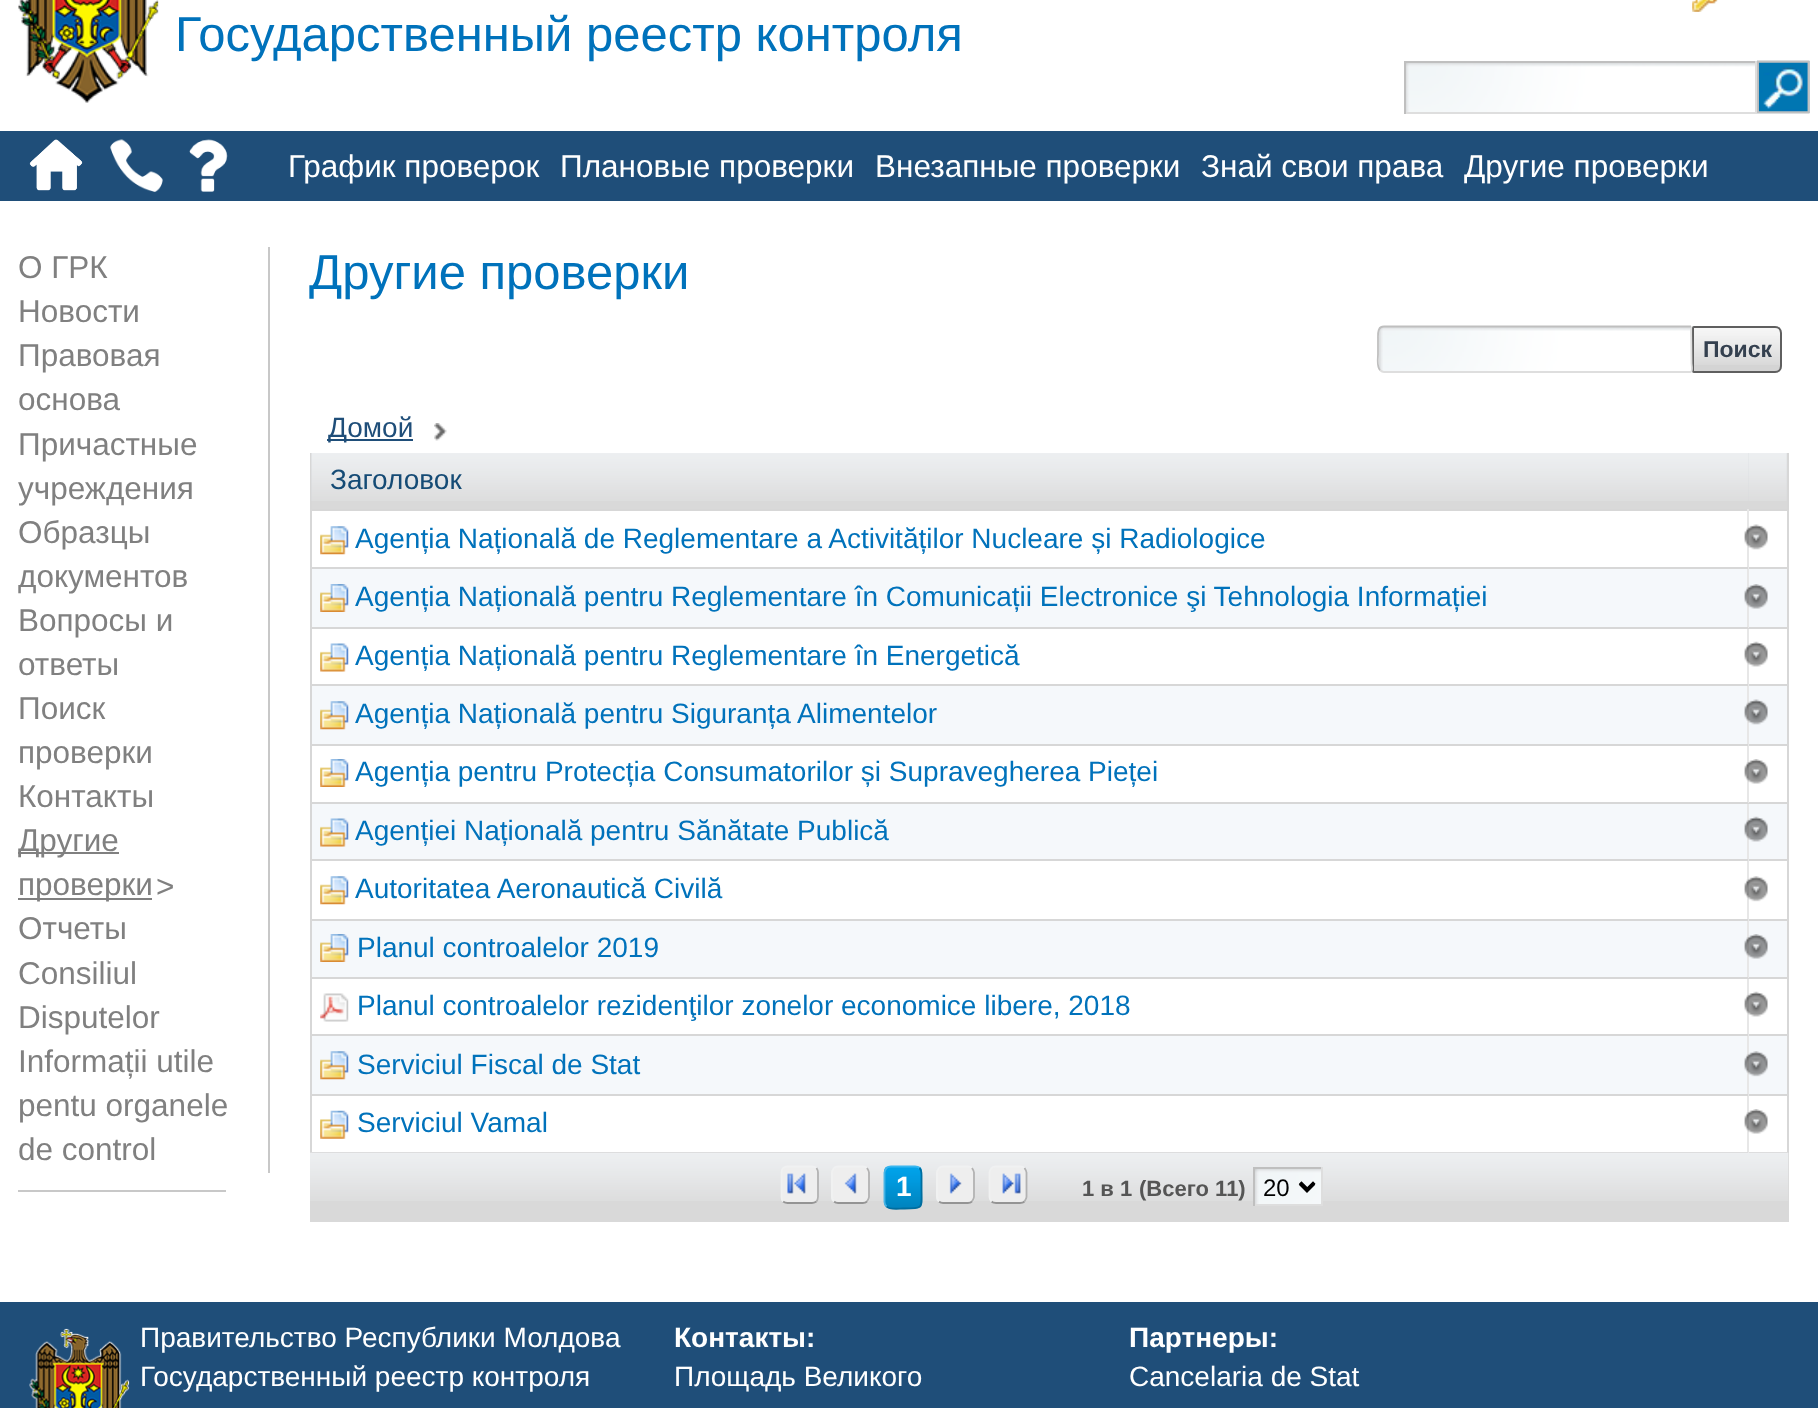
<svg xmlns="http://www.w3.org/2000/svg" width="1818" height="1408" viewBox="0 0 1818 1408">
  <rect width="100%" height="100%" fill="#fff"/>
  <image x="1692" y="0" width="26" height="12" href="img/1.png"/>
  <image x="18" y="0" width="141" height="103" href="img/2.png"/>
  <image x="1406" y="63" width="349" height="49" href="img/3.png"/>
  <path d="M1404 61h353v2H1404z" fill="#bfbfbf"/>
  <path d="M1755 61h2v53H1755z" fill="#dedede"/>
  <path d="M1404 112h353v2H1404z" fill="#dedede"/>
  <path d="M1404 61h2v53H1404z" fill="#bfbfbf"/>
  <image x="1757" y="60" width="53" height="54" href="img/4.png"/>
  <image x="1757" y="60" width="53" height="54" href="img/5.png"/>
  <path d="M0 131h1818v70H0z" fill="#1f4e79"/>
  <image x="29" y="139" width="54" height="52" href="img/6.png"/>
  <image x="110" y="139" width="53" height="53" href="img/7.png"/>
  <image x="189" y="139" width="39" height="53" href="img/8.png"/>
  <path d="M268 247h2v926H268z" fill="#c8c8c8"/>
  <path d="M18 852h101v2H18z" fill="#808080"/>
  <path d="M18 898h134v2H18z" fill="#808080"/>
  <path d="M18 1190h208v2H18z" fill="#c8c8c8"/>
  <path d="M1694 326H1775C1779 326 1782 329 1782 333V366C1782 370 1779 373 1775 373H1694C1693 373 1692 372 1692 371V328C1692 327 1693 326 1694 326Z" fill="#d4d4d4"/>
  <image x="1692" y="326" width="90" height="39" href="img/10.png"/>
  <path d="M1694 327H1775C1778.5 327 1781 329.5 1781 333V366C1781 369.5 1778.5 372 1775 372H1694C1693.5 372 1693 371.5 1693 371V328C1693 327.5 1693.5 327 1694 327Z" fill="none" stroke="#5f5f5f" stroke-width="2"/>
  <image x="1379" y="326" width="314" height="46" href="img/9.png"/>
  <path d="M1691 326.5L1691.5 363.5C1691.5 364 1693 372 1690.5 372H1384C1382.5 372 1381 371 1380 370" fill="none" stroke="#dedede" stroke-width="1.8"/>
  <path d="M1380 370C1376.5 366.5 1378 358.5 1378 354.5V338C1378 333.5 1377.5 326.5 1384 326.5H1691" fill="none" stroke="#bfbfbf" stroke-width="1.8"/>
  <image x="434" y="423" width="13" height="18" href="img/11.png"/>
  <path d="M327 439h86v2H327z" fill="#1f4e79"/>
  <path d="M1787 453h2v700H1787z" fill="#d7d7d7"/>
  <path d="M310 453h2v700H310z" fill="#d7d7d7"/>
  <path d="M312 501h1436v8H312z" fill="#d9d9d9"/>
  <image x="311" y="453" width="1437" height="48" href="img/12.png"/>
  <path d="M1748 453h39v56H1748z" fill="#d9d9d9"/>
  <image x="1748" y="453" width="39" height="48" href="img/13.png"/>
  <path d="M312 509h1477v2H312z" fill="#d7d7d7"/>
  <path d="M1747 1152h42v1H1747z" fill="#d7d7d7"/>
  <path d="M1747 1094h2v59H1747z" fill="#e7e7e7"/>
  <path d="M1747 1094h42v2H1747z" fill="#d7d7d7"/>
  <path d="M1747 1034h2v62H1747z" fill="#e7e7e7"/>
  <path d="M1747 1034h42v2H1747z" fill="#d7d7d7"/>
  <path d="M1747 977h2v59H1747z" fill="#e7e7e7"/>
  <path d="M1747 977h42v2H1747z" fill="#d7d7d7"/>
  <path d="M1747 919h2v59H1747z" fill="#e7e7e7"/>
  <path d="M1747 919h42v2H1747z" fill="#d7d7d7"/>
  <path d="M1747 859h2v62H1747z" fill="#e7e7e7"/>
  <path d="M1747 859h42v2H1747z" fill="#d7d7d7"/>
  <path d="M1747 802h2v59H1747z" fill="#e7e7e7"/>
  <path d="M1747 802h42v2H1747z" fill="#d7d7d7"/>
  <path d="M1747 744h2v59H1747z" fill="#e7e7e7"/>
  <path d="M1747 744h42v2H1747z" fill="#d7d7d7"/>
  <path d="M1747 684h2v62H1747z" fill="#e7e7e7"/>
  <path d="M1747 684h42v2H1747z" fill="#d7d7d7"/>
  <path d="M1747 627h2v59H1747z" fill="#e7e7e7"/>
  <path d="M1747 627h42v2H1747z" fill="#d7d7d7"/>
  <path d="M1747 567h2v61H1747z" fill="#e7e7e7"/>
  <path d="M1747 567h42v2H1747z" fill="#d7d7d7"/>
  <path d="M1747 509h2v60H1747z" fill="#e7e7e7"/>
  <image x="1744" y="524" width="24" height="26" href="img/14.png"/>
  <path d="M312 567h1436v2H312z" fill="#d7d7d7"/>
  <image x="320" y="526" width="29" height="29" href="img/15.png"/>
  <path d="M312 569h1435v58H312z" fill="#f5f8fb"/>
  <path d="M312 627h1436v2H312z" fill="#d7d7d7"/>
  <image x="320" y="584" width="29" height="28" href="img/16.png"/>
  <path d="M1749 569h38v58H1749z" fill="#f5f8fb"/>
  <image x="1744" y="584" width="24" height="25" href="img/17.png"/>
  <path d="M312 684h1436v2H312z" fill="#d7d7d7"/>
  <image x="320" y="643" width="29" height="29" href="img/18.png"/>
  <image x="1744" y="641" width="24" height="26" href="img/19.png"/>
  <path d="M312 686h1435v58H312z" fill="#f5f8fb"/>
  <path d="M312 744h1436v2H312z" fill="#d7d7d7"/>
  <image x="320" y="701" width="29" height="29" href="img/20.png"/>
  <path d="M1749 686h38v58H1749z" fill="#f5f8fb"/>
  <image x="1744" y="699" width="24" height="26" href="img/21.png"/>
  <path d="M312 802h1436v2H312z" fill="#d7d7d7"/>
  <image x="320" y="759" width="29" height="28" href="img/22.png"/>
  <image x="1744" y="759" width="24" height="25" href="img/23.png"/>
  <path d="M312 804h1435v55H312z" fill="#f5f8fb"/>
  <path d="M312 859h1436v2H312z" fill="#d7d7d7"/>
  <image x="320" y="818" width="29" height="29" href="img/24.png"/>
  <path d="M1749 804h38v55H1749z" fill="#f5f8fb"/>
  <image x="1744" y="816" width="24" height="26" href="img/25.png"/>
  <path d="M312 919h1436v2H312z" fill="#d7d7d7"/>
  <image x="320" y="876" width="29" height="29" href="img/15.png"/>
  <image x="1744" y="876" width="24" height="26" href="img/26.png"/>
  <path d="M312 921h1435v56H312z" fill="#f5f8fb"/>
  <path d="M312 977h1436v2H312z" fill="#d7d7d7"/>
  <image x="320" y="934" width="29" height="28" href="img/16.png"/>
  <path d="M1749 921h38v56H1749z" fill="#f5f8fb"/>
  <image x="1744" y="934" width="24" height="25" href="img/17.png"/>
  <path d="M312 1034h1436v2H312z" fill="#d7d7d7"/>
  <image x="320" y="993" width="29" height="29" href="img/27.png"/>
  <image x="1744" y="991" width="24" height="26" href="img/19.png"/>
  <path d="M312 1036h1435v58H312z" fill="#f5f8fb"/>
  <path d="M312 1094h1436v2H312z" fill="#d7d7d7"/>
  <image x="320" y="1051" width="29" height="29" href="img/20.png"/>
  <path d="M1749 1036h38v58H1749z" fill="#f5f8fb"/>
  <image x="1744" y="1051" width="24" height="26" href="img/28.png"/>
  <path d="M312 1152h1436v1H312z" fill="#d7d7d7"/>
  <image x="320" y="1110" width="29" height="29" href="img/29.png"/>
  <image x="1744" y="1109" width="24" height="25" href="img/23.png"/>
  <path d="M310 1153h1479v69H310z" fill="#d9d9d9"/>
  <image x="310" y="1152" width="1479" height="49" href="img/30.png"/>
  <rect x="781" y="1166" width="38" height="38" rx="7" fill="#eee"/>
  <image x="787" y="1173" width="19" height="21" href="img/31.png"/>
  <path d="M783 1168C784.5 1167 786 1166.5 787.5 1166.5H812C813.5 1166.5 815 1167 816.5 1168" fill="none" stroke="#f0f1f2" stroke-width="1.8"/>
  <path d="M816.5 1168C817.5 1169.5 818 1171 818 1172.5V1197C818 1198.5 817.5 1200 816.5 1201.5" fill="none" stroke="#b2b2b2" stroke-width="1.8"/>
  <path d="M816.5 1201.5C815 1202.5 813.5 1203 812 1203H787.5C786 1203 784.5 1202.5 783 1201.5" fill="none" stroke="#949494" stroke-width="1.8"/>
  <path d="M783 1201.5C782 1200 781.5 1198.5 781.5 1197V1172.5C781.5 1171 782 1169.5 783 1168" fill="none" stroke="#f0f1f1" stroke-width="1.8"/>
  <rect x="831" y="1166" width="39" height="38" rx="7" fill="#eee"/>
  <image x="844" y="1173" width="13" height="21" href="img/32.png"/>
  <path d="M834 1168C835 1167 836.5 1166.5 838 1166.5H863C864.5 1166.5 866 1167 867 1168" fill="none" stroke="#f0f1f2" stroke-width="1.8"/>
  <path d="M867 1168C868 1169.5 869 1171 869 1172.5V1197C869 1198.5 868 1200 867 1201.5" fill="none" stroke="#b2b2b2" stroke-width="1.8"/>
  <path d="M867 1201.5C866 1202.5 864.5 1203 863 1203H838C836.5 1203 835 1202.5 834 1201.5" fill="none" stroke="#949494" stroke-width="1.8"/>
  <path d="M834 1201.5C833 1200 832 1198.5 832 1197V1172.5C832 1171 833 1169.5 834 1168" fill="none" stroke="#f0f1f1" stroke-width="1.8"/>
  <image x="883" y="1166" width="40" height="43" href="img/33.png"/>
  <path d="M886.5 1168C887.5 1167 889 1166.5 891 1166.5H915C917 1166.5 918.5 1167 919.5 1168" fill="none" stroke="#38b6ef" stroke-width="1.8"/>
  <path d="M919.5 1168C922 1170.5 921.5 1174.5 921.5 1177.5V1187.5C921.5 1209 924.5 1208.5 903 1208.5C899 1208.5 889.5 1210 886.5 1206.5" fill="none" stroke="#006d9e" stroke-width="1.8"/>
  <path d="M886.5 1206.5C885.5 1205.5 884.5 1204 884.5 1202V1172.5C884.5 1171 885.5 1169.5 886.5 1168" fill="none" stroke="#46b4e6" stroke-width="1.8"/>
  <rect x="936" y="1166" width="39" height="38" rx="7" fill="#eee"/>
  <image x="949" y="1173" width="13" height="21" href="img/34.png"/>
  <path d="M939 1168C940 1167 941.5 1166.5 943 1166.5H968C969.5 1166.5 971 1167 972 1168" fill="none" stroke="#f0f1f2" stroke-width="1.8"/>
  <path d="M972 1168C973 1169.5 974 1171 974 1172.5V1197C974 1198.5 973 1200 972 1201.5" fill="none" stroke="#b2b2b2" stroke-width="1.8"/>
  <path d="M972 1201.5C971 1202.5 969.5 1203 968 1203H943C941.5 1203 940 1202.5 939 1201.5" fill="none" stroke="#949494" stroke-width="1.8"/>
  <path d="M939 1201.5C938 1200 937 1198.5 937 1197V1172.5C937 1171 938 1169.5 939 1168" fill="none" stroke="#f0f1f1" stroke-width="1.8"/>
  <rect x="989" y="1166" width="38" height="38" rx="7" fill="#eee"/>
  <image x="1002" y="1173" width="19" height="21" href="img/35.png"/>
  <path d="M991.5 1168C992.5 1167 994 1166.5 996 1166.5H1020C1022 1166.5 1023.5 1167 1024.5 1168" fill="none" stroke="#f0f1f2" stroke-width="1.8"/>
  <path d="M1024.5 1168C1025.5 1169.5 1026.5 1171 1026.5 1172.5V1197C1026.5 1198.5 1025.5 1200 1024.5 1201.5" fill="none" stroke="#b2b2b2" stroke-width="1.8"/>
  <path d="M1024.5 1201.5C1023.5 1202.5 1022 1203 1020 1203H996C994 1203 992.5 1202.5 991.5 1201.5" fill="none" stroke="#949494" stroke-width="1.8"/>
  <path d="M991.5 1201.5C990.5 1200 989.5 1198.5 989.5 1197V1172.5C989.5 1171 990.5 1169.5 991.5 1168" fill="none" stroke="#f0f1f1" stroke-width="1.8"/>
  <image x="1255" y="1169" width="66" height="35" href="img/36.png"/>
  <path d="M1253 1167h70v2H1253z" fill="#bfbfbf"/>
  <path d="M1321 1167h2v39H1321z" fill="#dedede"/>
  <path d="M1253 1204h70v2H1253z" fill="#dedede"/>
  <path d="M1253 1167h2v39H1253z" fill="#bfbfbf"/>
  <path d="M1300 1183.5L1307 1190.5L1314 1183.5" fill="none" stroke="#000" stroke-width="3.5"/>
  <path d="M0 1302h1818v106H0z" fill="#1f4e79"/>
  <image x="29" y="1328" width="101" height="80" href="img/37.png"/>
  <text x="175" y="51" font-family="Liberation Sans" font-size="49" fill="#0072bb">Государственный реестр контроля</text>
  <g font-family="Liberation Sans" font-size="31.5" fill="#fff">
    <text x="288" y="177">График проверок</text>
    <text x="560" y="177">Плановые проверки</text>
    <text x="875" y="177">Внезапные проверки</text>
    <text x="1201" y="177">Знай свои права</text>
    <text x="1464" y="177">Другие проверки</text>
  </g>
  <g font-family="Liberation Sans" font-size="31.5" fill="#808080">
    <text x="18" y="278">О ГРК</text>
    <text x="18" y="322">Новости</text>
    <text x="18" y="366">Правовая</text>
    <text x="18" y="410">основа</text>
    <text x="18" y="455">Причастные</text>
    <text x="18" y="499">учреждения</text>
    <text x="18" y="543">Образцы</text>
    <text x="18" y="587">документов</text>
    <text x="18" y="631">Вопросы и</text>
    <text x="18" y="675">ответы</text>
    <text x="18" y="719">Поиск</text>
    <text x="18" y="763">проверки</text>
    <text x="18" y="807">Контакты</text>
    <text x="18" y="851">Другие</text>
    <text x="18" y="895">проверки</text>
    <text x="156" y="897">&gt;</text>
    <text x="18" y="939">Отчеты</text>
    <text x="18" y="984">Consiliul</text>
    <text x="18" y="1028">Disputelor</text>
    <text x="18" y="1072">Informații utile</text>
    <text x="18" y="1116">pentu organele</text>
    <text x="18" y="1160">de control</text>
  </g>
  <text x="309" y="289" font-family="Liberation Sans" font-size="49" fill="#0072bb">Другие проверки</text>
  <text x="1703" y="357" font-family="Liberation Sans" font-size="23" font-weight="bold" fill="#34404f">Поиск</text>
  <text x="328" y="437" font-family="Liberation Sans" font-size="28" fill="#1f4e79">Домой</text>
  <text x="330" y="489" font-family="Liberation Sans" font-size="28" fill="#154b75">Заголовок</text>
  <g font-family="Liberation Sans" font-size="28" fill="#0072bb">
    <text x="355" y="548">Agenția Națională de Reglementare a Activităților Nucleare și Radiologice</text>
    <text x="355" y="606">Agenția Națională pentru Reglementare în Comunicații Electronice şi Tehnologia Informației</text>
    <text x="355" y="665">Agenția Națională pentru Reglementare în Energetică</text>
    <text x="355" y="723">Agenția Națională pentru Siguranța Alimentelor</text>
    <text x="355" y="781">Agenția pentru Protecția Consumatorilor și Supravegherea Pieței</text>
    <text x="355" y="840">Agenției Națională pentru Sănătate Publică</text>
    <text x="355" y="898">Autoritatea Aeronautică Civilă</text>
    <text x="357" y="957">Planul controalelor 2019</text>
    <text x="357" y="1015">Planul controalelor rezidenţilor zonelor economice libere, 2018</text>
    <text x="357" y="1074">Serviciul Fiscal de Stat</text>
    <text x="357" y="1132">Serviciul Vamal</text>
  </g>
  <text x="896" y="1196" font-family="Liberation Sans" font-size="28" font-weight="bold" fill="#fff">1</text>
  <g font-family="Liberation Sans" font-size="22" font-weight="bold" fill="#555">
    <text x="1082" y="1196">1 в 1</text>
    <text x="1139" y="1196">(Всего 11)</text>
  </g>
  <text x="1263" y="1196" font-family="Liberation Sans" font-size="24" fill="#000">20</text>
  <g font-family="Liberation Sans" font-size="28" fill="#fff">
    <text x="140" y="1347">Правительство Республики Молдова</text>
    <text x="140" y="1386">Государственный реестр контроля</text>
  </g>
  <text x="674" y="1347" font-family="Liberation Sans" font-size="28" font-weight="bold" fill="#fff">Контакты:</text>
  <text x="674" y="1386" font-family="Liberation Sans" font-size="28" fill="#fff">Площадь Великого</text>
  <text x="1129" y="1347" font-family="Liberation Sans" font-size="28" font-weight="bold" fill="#fff">Партнеры:</text>
  <text x="1129" y="1386" font-family="Liberation Sans" font-size="28" fill="#fff">Cancelaria de Stat</text>
</svg>
